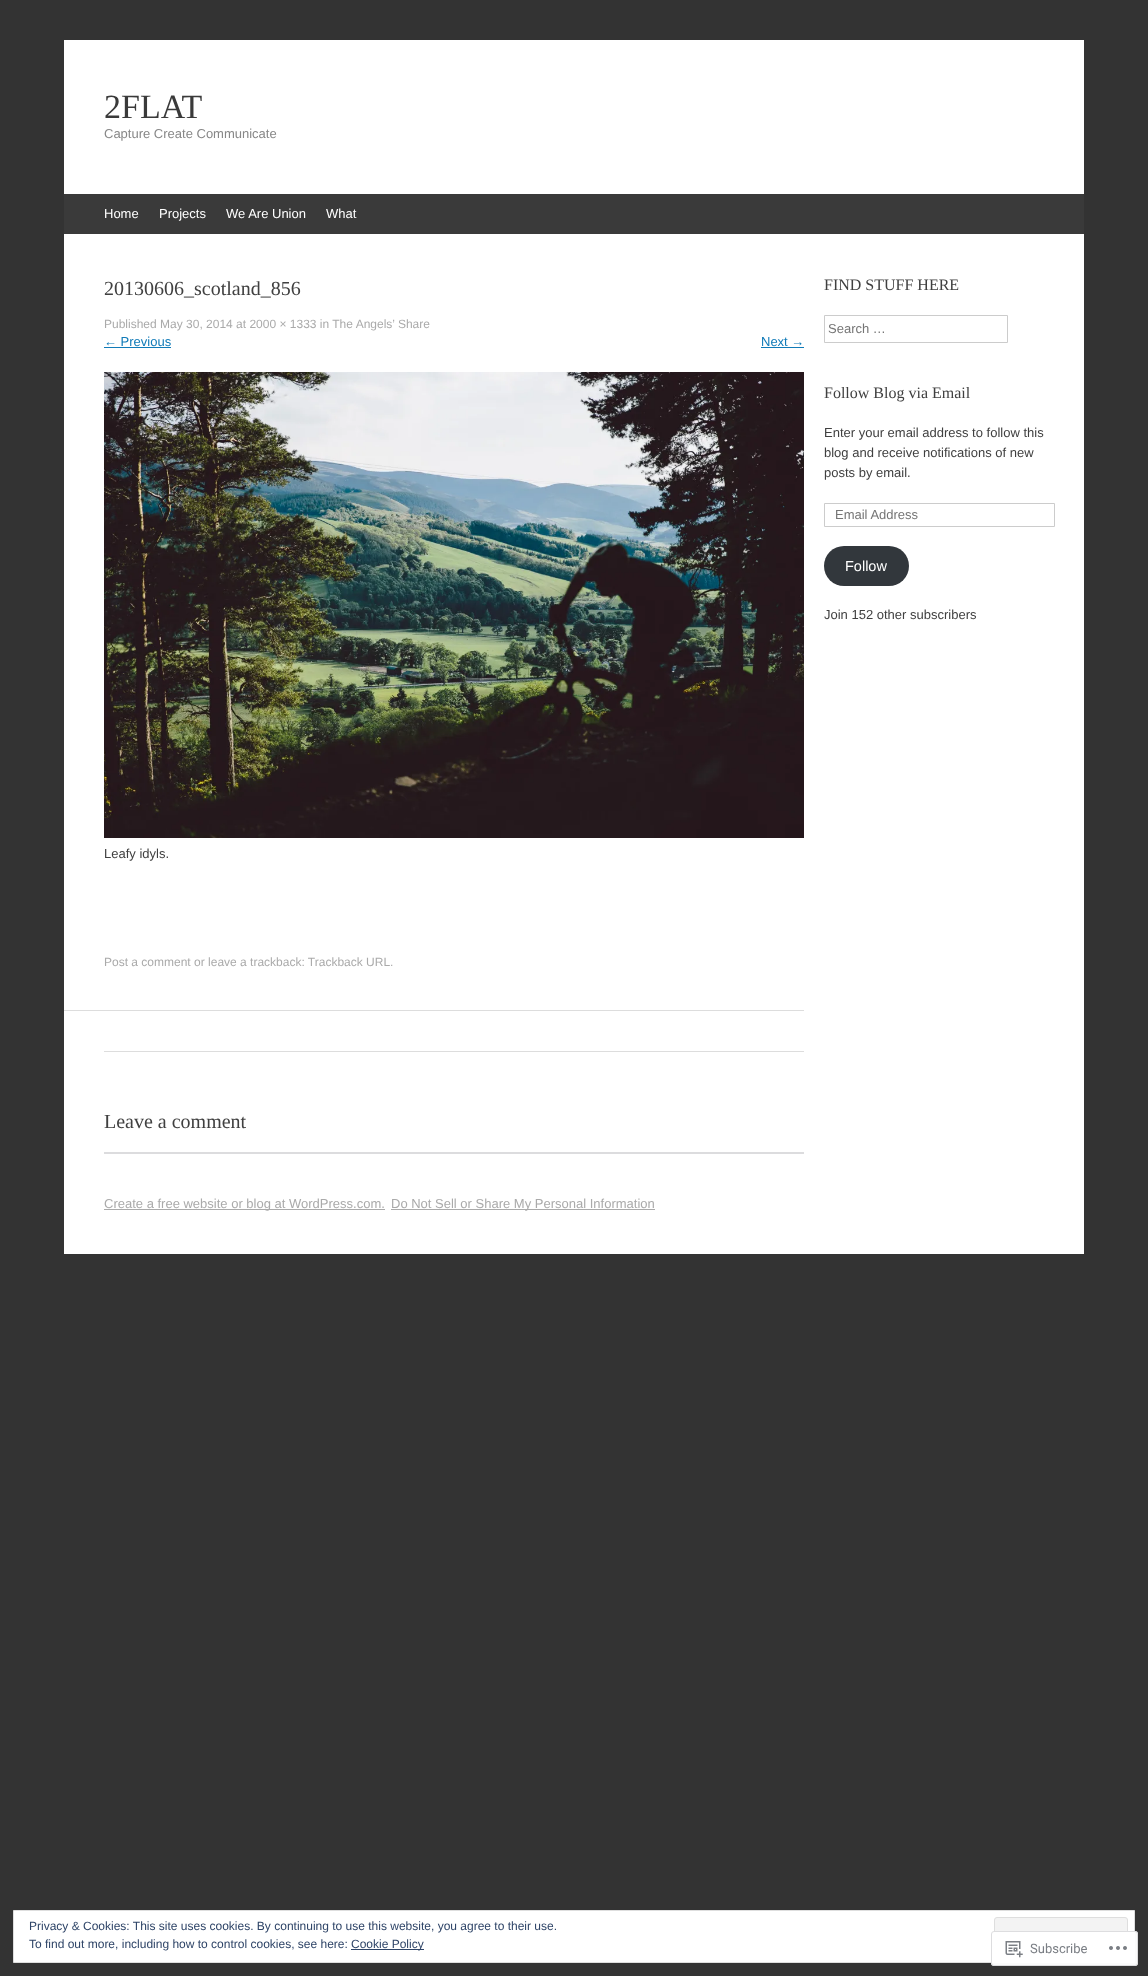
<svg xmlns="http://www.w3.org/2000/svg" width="1148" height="1976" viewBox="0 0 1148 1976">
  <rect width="100%" height="100%" fill="#333"/>
  <path d="M64 40h1020v1214H64z" fill="#fff"/>
  <path d="M64 194h1020v40H64z" fill="#3a3a3a"/>
  <path d="M64 1010h740v1H64z" fill="#ddd"/>
  <path d="M104 347h67v1H104z" fill="#117bb8"/>
  <path d="M761 347h43v1H761z" fill="#117bb8"/>
  <image x="104" y="372" width="700" height="466" href="img/1.png"/>
  <path d="M104 1051h700v1H104z" fill="#ddd"/>
  <path d="M104 1152h700v2H104z" fill="#dcdcde"/>
  <path d="M824.5 315.5h183v27H824.5z" fill="none" stroke="#ccc"/>
  <path d="M824.5 503.5h230v23H824.5z" fill="none" stroke="#ccc"/>
  <rect x="824" y="546" width="85" height="40" rx="20" fill="#32373c"/>
  <path d="M104 1209h281v1H104z" fill="#aaa"/>
  <path d="M391 1209h264v1H391z" fill="#aaa"/>
  <path d="M13.5 1910.5h1121v52H13.5z" fill="#fff" stroke="#dedede"/>
  <rect x="994.5" y="1917.5" width="133" height="38" rx="2.5" fill="#f3f3f3" stroke="#dedede"/>
  <path d="M351 1949h73v1H351z" fill="#2e4467"/>
  <rect x="991" y="1931" width="147" height="35" rx="3" fill="#fffffffa"/>
  <rect x="991.5" y="1931.5" width="146" height="34" rx="2.5" fill="none" stroke="#dcdcdefa"/>
  <image x="1005" y="1941" width="18" height="17" href="img/2.png"/>
  <image x="1109" y="1946" width="18" height="4" href="img/3.png"/>
  <text x="104" y="118" font-family="Liberation Serif" font-size="34" fill="#3a3a3a">2FLAT</text>
  <text x="104" y="138" font-family="Liberation Sans" font-size="13" fill="#878787">Capture Create Communicate</text>
  <g font-family="Liberation Sans" font-size="13" fill="#fff">
    <text x="104" y="218">Home</text>
    <text x="159" y="218">Projects</text>
    <text x="226" y="218">We Are Union</text>
    <text x="326" y="218">What</text>
  </g>
  <text x="104" y="295" font-family="Liberation Serif" font-size="20" fill="#404040">20130606_scotland_856</text>
  <text x="104" y="328" font-family="Liberation Sans" font-size="12" fill="#aaa">Published May 30, 2014 at 2000 × 1333 in The Angels’ Share</text>
  <g font-family="Liberation Sans" font-size="13" fill="#117bb8">
    <text x="104" y="346">← Previous</text>
    <text x="761" y="346">Next →</text>
  </g>
  <text x="104" y="858" font-family="Liberation Sans" font-size="13" fill="#404040">Leafy idyls.</text>
  <text x="104" y="966" font-family="Liberation Sans" font-size="12" fill="#aaa">Post a comment or leave a trackback: Trackback URL.</text>
  <text x="104" y="1128" font-family="Liberation Serif" font-size="20" fill="#404040">Leave a comment</text>
  <text x="824" y="290" font-family="Liberation Serif" font-size="16" fill="#404040">FIND STUFF HERE</text>
  <text x="828" y="333" font-family="Liberation Sans" font-size="13" fill="#757575">Search …</text>
  <text x="824" y="398" font-family="Liberation Serif" font-size="16" fill="#404040">Follow Blog via Email</text>
  <g font-family="Liberation Sans" font-size="13" fill="#404040">
    <text x="824" y="437">Enter your email address to follow this</text>
    <text x="824" y="457">blog and receive notifications of new</text>
    <text x="824" y="477">posts by email.</text>
  </g>
  <text x="835" y="519" font-family="Liberation Sans" font-size="13" fill="#757575">Email Address</text>
  <text x="845" y="571" font-family="Liberation Sans" font-size="14.5" fill="#fff">Follow</text>
  <text x="824" y="619" font-family="Liberation Sans" font-size="13" fill="#404040">Join 152 other subscribers</text>
  <g font-family="Liberation Sans" font-size="13" fill="#aaa">
    <text x="104" y="1208">Create a free website or blog at WordPress.com.</text>
    <text x="391" y="1208">Do Not Sell or Share My Personal Information</text>
  </g>
  <g font-family="Liberation Sans" font-size="12" fill="#2e4467">
    <text x="29" y="1930">Privacy &amp; Cookies: This site uses cookies. By continuing to use this website, you agree to their use.</text>
    <text x="29" y="1948">To find out more, including how to control cookies, see here:</text>
    <text x="351" y="1948">Cookie Policy</text>
  </g>
  <text x="1030" y="1953" font-family="Roboto" font-size="13" fill="#7a7e84">Subscribe</text>
</svg>
